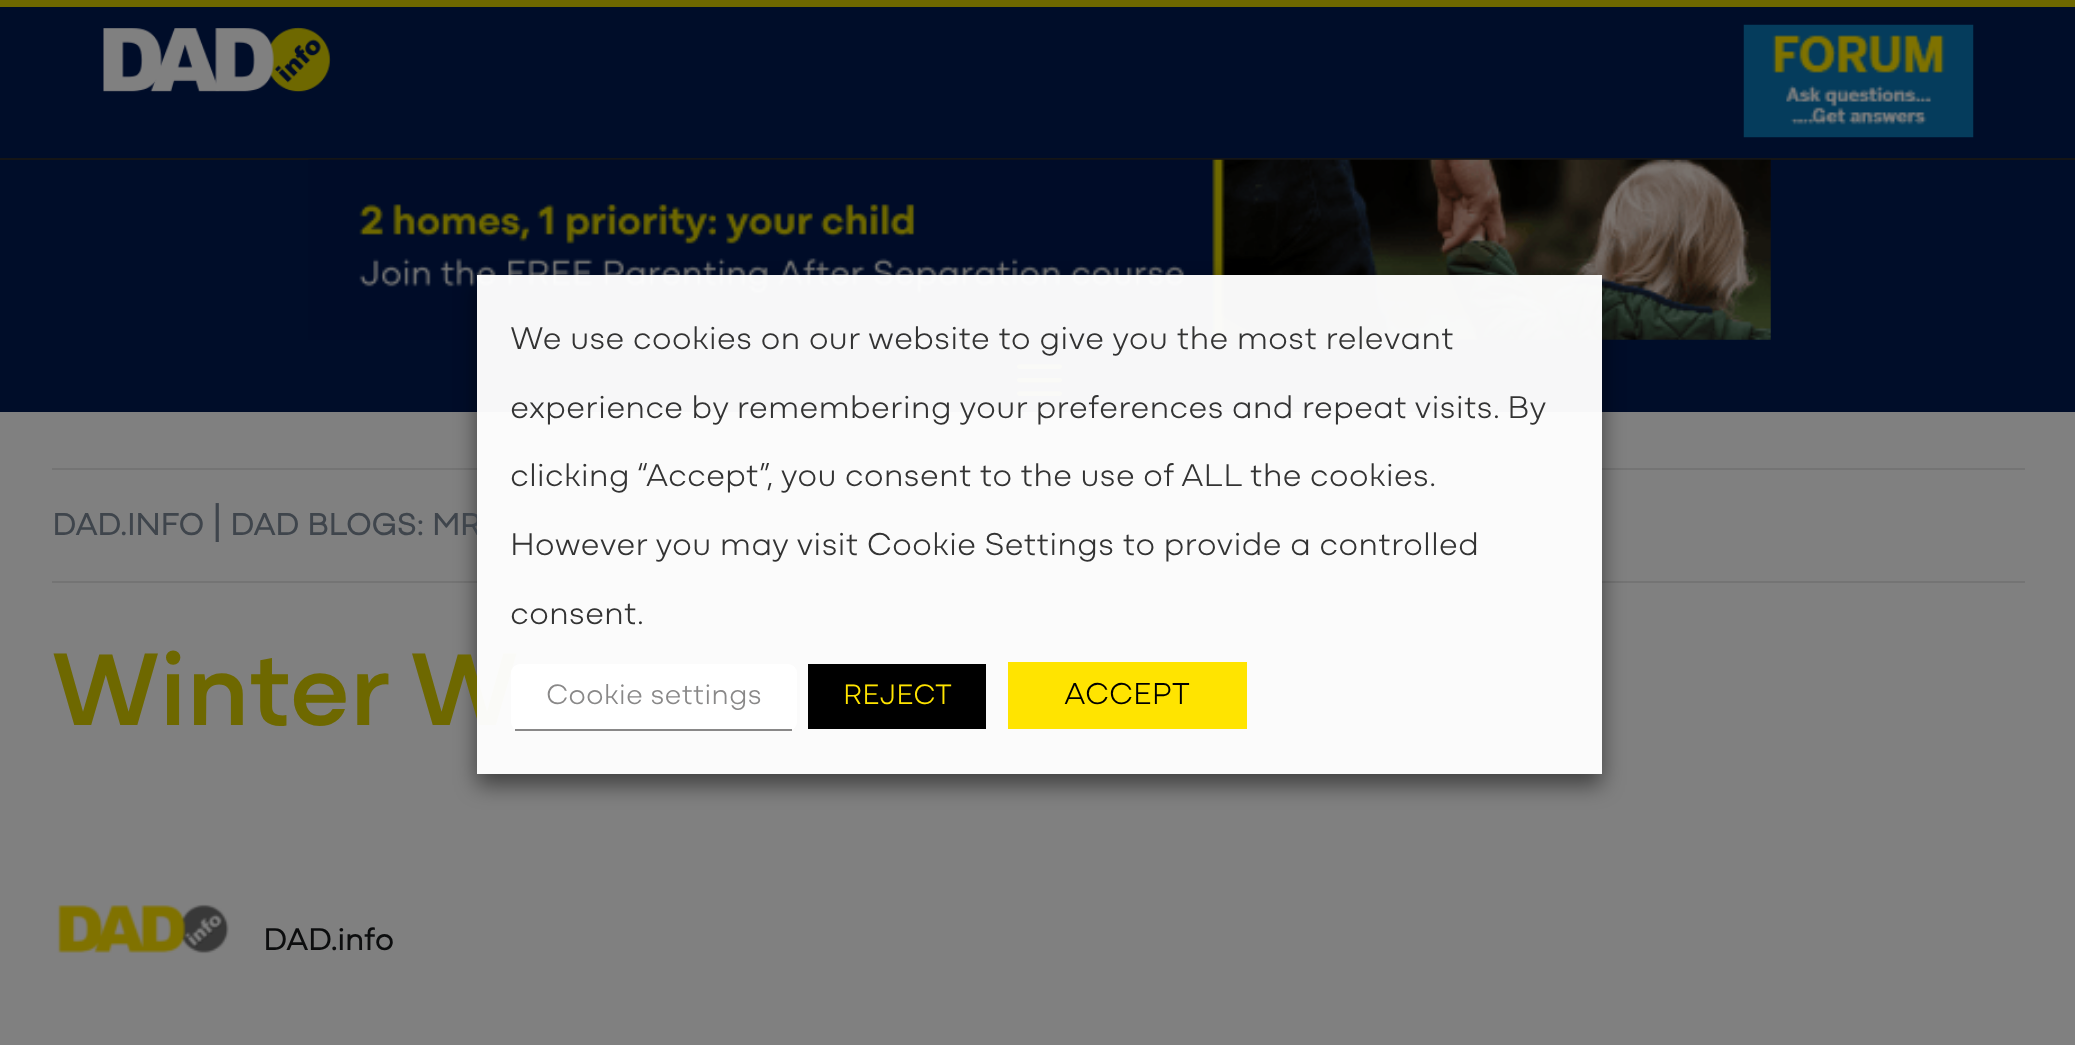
<svg xmlns="http://www.w3.org/2000/svg" width="2075" height="1045" viewBox="0 0 2075 1045">
  <defs>
    <clipPath id="clip1"><path d="M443 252H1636V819H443ZM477 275H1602V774H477Z" clip-rule="evenodd"/></clipPath>
  </defs>
  <rect width="100%" height="100%" fill="#808080"/>
  <path d="M0 7h2075v405H0z" fill="#000d29"/>
  <path d="M0 0h2075v7H0z" fill="#6e6800"/>
  <image x="103" y="27" width="228" height="65" href="img/1.png"/>
  <image x="1743" y="24" width="231" height="114" href="img/2.png"/>
  <path d="M0 158h2075v2H0z" fill="#151516"/>
  <image x="308" y="159" width="1463" height="181" href="img/3.png"/>
  <image x="1017" y="364" width="45" height="32" href="img/4.png"/>
  <path d="M52 468h1973v2H52z" fill="#747474"/>
  <path d="M52 581h1973v2H52z" fill="#747474"/>
  <image x="57" y="904" width="172" height="50" href="img/5.png"/>
  <g clip-path="url(#clip1)">
    <path d="M477 286h1125v499H477z" fill="#00000080" filter="blur(11px)"/>
  </g>
  <text x="52" y="535" font-family="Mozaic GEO" font-size="31.75" font-weight="bold" fill="#3f454c">DAD.INFO</text>
  <text x="212" y="535" font-family="Mozaic GEO" font-size="36" font-weight="bold" fill="#3f454c">|</text>
  <text x="230" y="535" font-family="Mozaic GEO" font-size="31.75" font-weight="bold" fill="#3f454c">DAD BLOGS: MR</text>
  <text x="52" y="725" font-family="Mozaic GEO" font-size="108" font-weight="600" fill="#6e6800">Winter W</text>
  <text x="263" y="950" font-family="Mozaic GEO" font-size="31.5" font-weight="bold" fill="#0c0d0e">DAD.info</text>
  <path d="M477 275h1125v499H477z" fill="#fffffff7"/>
  <g font-family="Mozaic GEO" font-size="33" font-weight="300" fill="#333">
    <text x="510" y="349">We use cookies on our website to give you the most relevant</text>
    <text x="510" y="418" word-spacing="-0.25">experience by remembering your preferences and repeat visits. By</text>
    <text x="510" y="486" word-spacing="-0.25">clicking “Accept”, you consent to the use of ALL the cookies.</text>
    <text x="510" y="555">However you may visit Cookie Settings to provide a controlled</text>
    <text x="510" y="624">consent.</text>
  </g>
  <rect x="511" y="664" width="286" height="67" rx="9" fill="#fff"/>
  <path d="M515 729h277v2H515z" fill="#898888"/>
  <text x="546" y="704" font-family="Mozaic GEO" font-size="29.25" font-weight="300" fill="#898888">Cookie settings</text>
  <path d="M808 664h178v65H808z" fill="#000"/>
  <text x="843" y="704" font-family="Mozaic GEO" font-size="29.25" font-weight="300" fill="#ffe400">REJECT</text>
  <path d="M1008 662h239v67H1008z" fill="#ffe400"/>
  <text x="1064" y="704" font-family="Mozaic GEO" font-size="31.5" font-weight="300" fill="#000">ACCEPT</text>
</svg>
